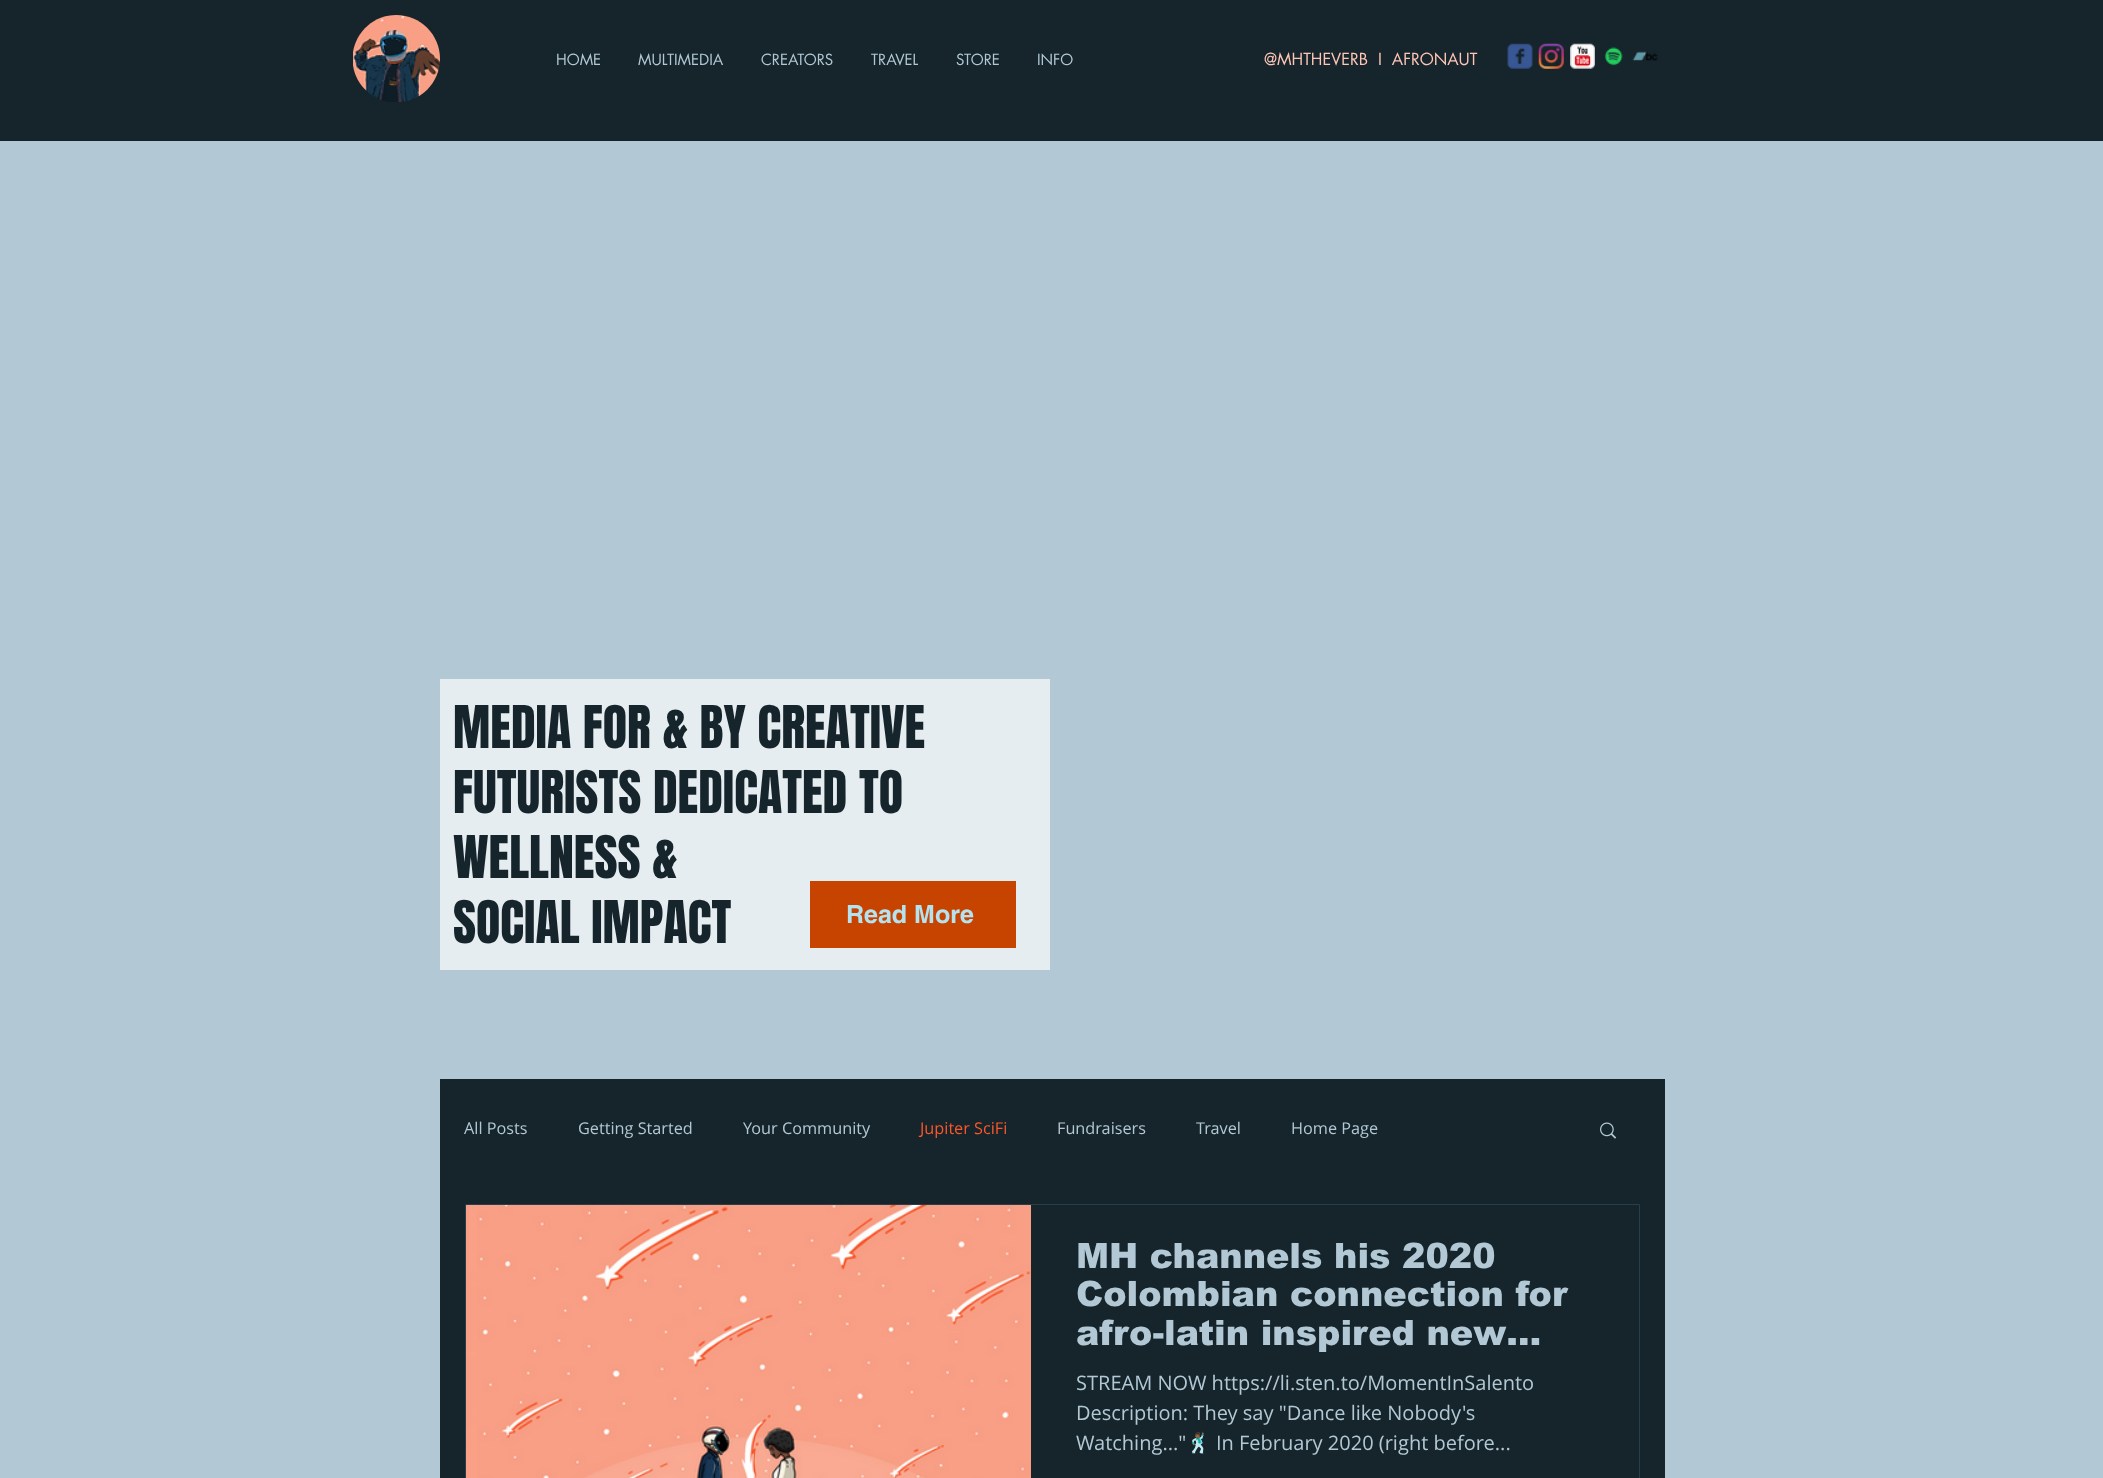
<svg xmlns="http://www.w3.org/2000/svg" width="2103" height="1478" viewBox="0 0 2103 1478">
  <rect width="100%" height="100%" fill="#b2c9d5"/>
  <path d="M0 0h2103v141H0z" fill="#16242b"/>
  <image x="353" y="15" width="87" height="87" href="img/1.png"/>
  <image x="1507" y="43" width="26" height="26" href="img/2.png"/>
  <image x="1538" y="43" width="26" height="26" href="img/3.png"/>
  <image x="1570" y="43" width="25" height="26" href="img/4.png"/>
  <image x="1604" y="47" width="19" height="19" href="img/5.png"/>
  <image x="1632" y="51" width="26" height="10" href="img/6.png"/>
  <path d="M440 679h610v291H440z" fill="#e6edf1"/>
  <path d="M810 881h206v67H810z" fill="#c74300"/>
  <path d="M440 1079h1225v399H440z" fill="#16242b"/>
  <image x="1600" y="1122" width="17" height="17" href="img/7.png"/>
  <path d="M465.5 1204.5h1174v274H465.5z" fill="none" stroke="#263f4c"/>
  <image x="466" y="1205" width="330" height="273" href="img/8.png"/>
  <image x="477" y="1205" width="554" height="273" href="img/9.png"/>
  <g font-family="futura" font-size="15" fill="#b2c9d5">
    <text x="556" y="65">HOME</text>
    <text x="638" y="65">MULTIMEDIA</text>
    <text x="761" y="65">CREATORS</text>
    <text x="871" y="65">TRAVEL</text>
    <text x="956" y="65">STORE</text>
    <text x="1037" y="65">INFO</text>
  </g>
  <text x="1264" y="65" font-family="futura" font-size="16.25" fill="#fdc6b7" xml:space="preserve">@MHTHEVERB  I  AFRONAUT</text>
  <g font-family="Anton" font-size="50" fill="#16242b">
    <text x="453" y="748">MEDIA FOR &amp; BY CREATIVE</text>
    <text x="453" y="813">FUTURISTS DEDICATED TO</text>
    <text x="453" y="878">WELLNESS &amp;</text>
    <text x="453" y="943">SOCIAL IMPACT</text>
  </g>
  <text x="846" y="923" font-family="helvetica" font-size="25" font-weight="bold" fill="#b4e2ef">Read More</text>
  <g font-family="Open Sans" font-size="16.25" fill="#b2c9d5">
    <text x="464" y="1134">All Posts</text>
    <text x="578" y="1134">Getting Started</text>
    <text x="743" y="1134">Your Community</text>
  </g>
  <text x="920" y="1134" font-family="Open Sans" font-size="16.25" fill="#fa572a">Jupiter SciFi</text>
  <g font-family="Open Sans" font-size="16.25" fill="#b2c9d5">
    <text x="1057" y="1134">Fundraisers</text>
    <text x="1196" y="1134">Travel</text>
    <text x="1291" y="1134">Home Page</text>
  </g>
  <g font-family="arial" font-size="35" font-weight="900" fill="#b2c9d5">
    <text x="1076" y="1268">MH channels his 2020</text>
    <text x="1076" y="1306">Colombian connection for</text>
    <text x="1076" y="1345">afro-latin inspired new…</text>
  </g>
  <g font-family="Open Sans" font-size="20" fill="#b2c9d5">
    <text x="1076" y="1390">STREAM NOW https://li.sten.to/MomentInSalento</text>
    <text x="1076" y="1420">Description: They say "Dance like Nobody's</text>
    <text x="1076" y="1450">Watching..."</text>
  </g>
  <text x="1186" y="1450" font-family="Noto Color Emoji" font-size="20" fill="#b2c9d5">🕺🏾</text>
  <text x="1216" y="1450" font-family="Open Sans" font-size="20" fill="#b2c9d5">In February 2020 (right before...</text>
</svg>
